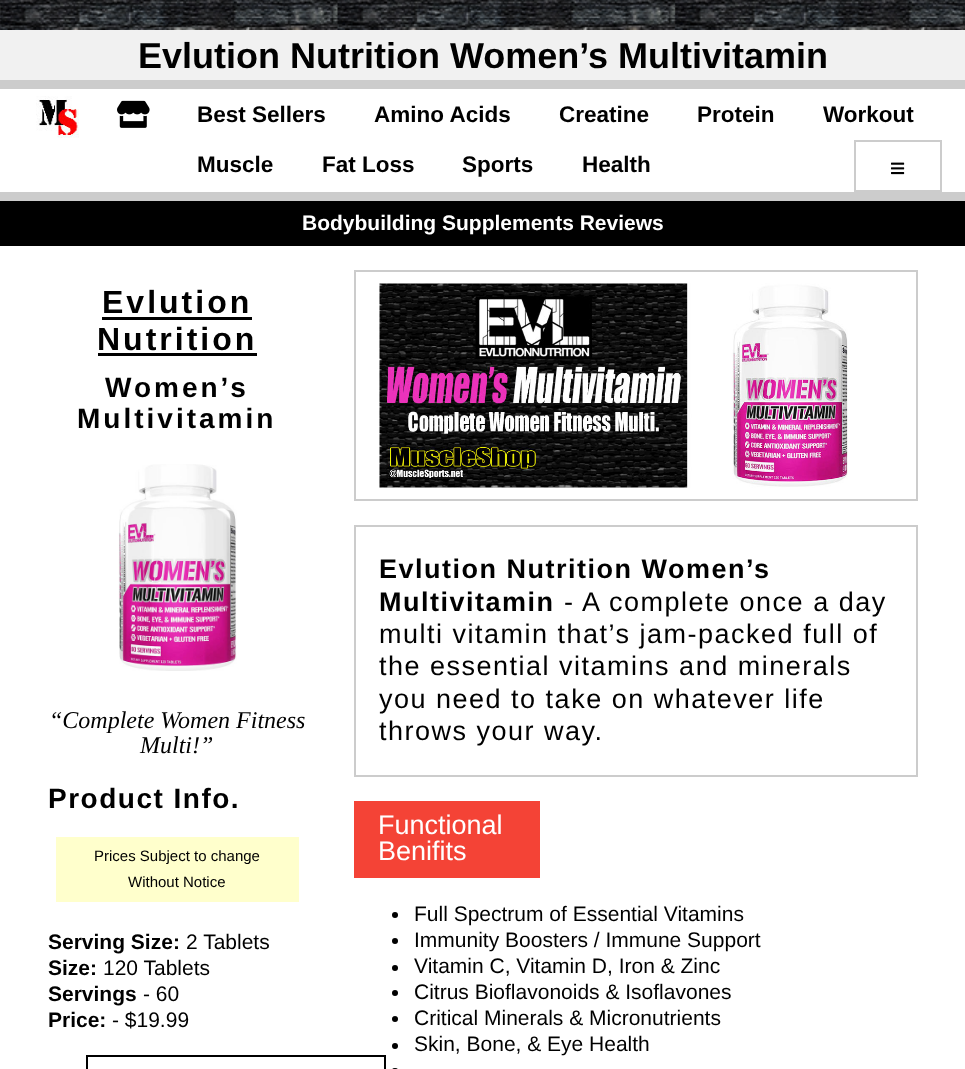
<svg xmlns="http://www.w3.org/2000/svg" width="965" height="1069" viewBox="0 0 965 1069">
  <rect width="100%" height="100%" fill="#fff"/>
  <image x="0" y="0" width="965" height="30" href="img/1.png"/>
  <image x="0" y="0" width="965" height="30" href="img/2.png"/>
  <path d="M0 30h965v50H0z" fill="#f1f1f1"/>
  <path d="M0 80h965v9H0z" fill="#ccc"/>
  <path d="M0 192h965v9H0z" fill="#ccc"/>
  <image x="36" y="96" width="43" height="42" href="img/3.png"/>
  <image x="117" y="100" width="33" height="28" href="img/4.png"/>
  <path d="M855 141h86v50H855z" fill="none" stroke="#ccc" stroke-width="2"/>
  <image x="891" y="162" width="14" height="13" href="img/5.png"/>
  <path d="M0 201h965v45H0z" fill="#000"/>
  <path d="M102 317h150v3H102z" fill="#000"/>
  <path d="M98 353h159v3H98z" fill="#000"/>
  <image x="118" y="464" width="119" height="207" href="img/6.png"/>
  <path d="M56 837h243v65H56z" fill="#ffc"/>
  <path d="M87 1056h298v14H87z" fill="none" stroke="#000" stroke-width="2"/>
  <path d="M355 271h562v229H355z" fill="none" stroke="#ccc" stroke-width="2"/>
  <image x="379" y="283" width="469" height="205" href="img/7.png"/>
  <path d="M355 526h562v250H355z" fill="none" stroke="#ccc" stroke-width="2"/>
  <path d="M354 801h186v77H354z" fill="#f44336"/>
  <circle cx="395" cy="915" r="3" fill="#000"/>
  <circle cx="395" cy="941" r="3" fill="#000"/>
  <circle cx="395" cy="968" r="3" fill="#000"/>
  <circle cx="395" cy="993" r="3" fill="#000"/>
  <circle cx="395" cy="1019" r="3" fill="#000"/>
  <circle cx="395" cy="1046" r="3" fill="#000"/>
  <rect x="392" y="1068" width="6" height="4" rx="3" fill="#000"/>
  <text x="138" y="68" font-family="Liberation Sans" font-size="36" font-weight="bold" fill="#000">Evlution Nutrition Women’s Multivitamin</text>
  <g font-family="Liberation Sans" font-size="22.5" font-weight="bold" fill="#000">
    <text x="197" y="122">Best Sellers</text>
    <text x="374" y="122">Amino Acids</text>
    <text x="559" y="122">Creatine</text>
    <text x="697" y="122">Protein</text>
    <text x="823" y="122">Workout</text>
    <text x="197" y="172">Muscle</text>
    <text x="322" y="172">Fat Loss</text>
    <text x="462" y="172">Sports</text>
    <text x="582" y="172">Health</text>
  </g>
  <text x="302" y="230" font-family="Liberation Sans" font-size="21" font-weight="bold" fill="#fff">Bodybuilding Supplements Reviews</text>
  <g font-family="Liberation Sans" font-size="32" font-weight="bold" letter-spacing="3" fill="#000">
    <text x="102" y="313">Evlution</text>
    <text x="97" y="350">Nutrition</text>
  </g>
  <g font-family="Liberation Sans" font-size="28" font-weight="bold" letter-spacing="3" fill="#000">
    <text x="105" y="397">Women’s</text>
    <text x="77" y="428">Multivitamin</text>
  </g>
  <g font-family="Liberation Serif" font-size="24" font-style="italic" fill="#000">
    <text x="49" y="728">“Complete Women Fitness</text>
    <text x="140" y="753">Multi!”</text>
  </g>
  <text x="48" y="808" font-family="Liberation Sans" font-size="28" font-weight="bold" letter-spacing="1.5" fill="#000">Product Info.</text>
  <g font-family="Liberation Sans" font-size="15" fill="#000">
    <text x="94" y="861">Prices Subject to change</text>
    <text x="128" y="887">Without Notice</text>
  </g>
  <text x="48" y="949" font-family="Liberation Sans" font-size="21" font-weight="bold" fill="#000">Serving Size:</text>
  <text x="186" y="949" font-family="Liberation Sans" font-size="21" fill="#000">2 Tablets</text>
  <text x="48" y="975" font-family="Liberation Sans" font-size="21" font-weight="bold" fill="#000">Size:</text>
  <text x="103" y="975" font-family="Liberation Sans" font-size="21" fill="#000">120 Tablets</text>
  <text x="48" y="1001" font-family="Liberation Sans" font-size="21" font-weight="bold" fill="#000">Servings</text>
  <text x="143" y="1001" font-family="Liberation Sans" font-size="21" fill="#000">- 60</text>
  <text x="48" y="1027" font-family="Liberation Sans" font-size="21" font-weight="bold" fill="#000">Price:</text>
  <text x="112" y="1027" font-family="Liberation Sans" font-size="21" fill="#000">- $19.99</text>
  <g font-family="Liberation Sans" font-size="27" font-weight="bold" letter-spacing="1.5" fill="#000">
    <text x="379" y="578">Evlution Nutrition Women’s</text>
    <text x="379" y="611">Multivitamin</text>
  </g>
  <g font-family="Liberation Sans" font-size="27" letter-spacing="1.5" fill="#000">
    <text x="564" y="611">- A complete once a day</text>
    <text x="379" y="643">multi vitamin that’s jam-packed full of</text>
    <text x="379" y="675">the essential vitamins and minerals</text>
    <text x="379" y="708">you need to take on whatever life</text>
    <text x="379" y="740">throws your way.</text>
  </g>
  <g font-family="Liberation Sans" font-size="27" fill="#fff">
    <text x="378" y="834">Functional</text>
    <text x="378" y="860">Benifits</text>
  </g>
  <g font-family="Liberation Sans" font-size="21" fill="#000">
    <text x="414" y="921">Full Spectrum of Essential Vitamins</text>
    <text x="414" y="947">Immunity Boosters / Immune Support</text>
    <text x="414" y="973">Vitamin C, Vitamin D, Iron &amp; Zinc</text>
    <text x="414" y="999">Citrus Bioflavonoids &amp; Isoflavones</text>
    <text x="414" y="1025">Critical Minerals &amp; Micronutrients</text>
    <text x="414" y="1051">Skin, Bone, &amp; Eye Health</text>
  </g>
</svg>
